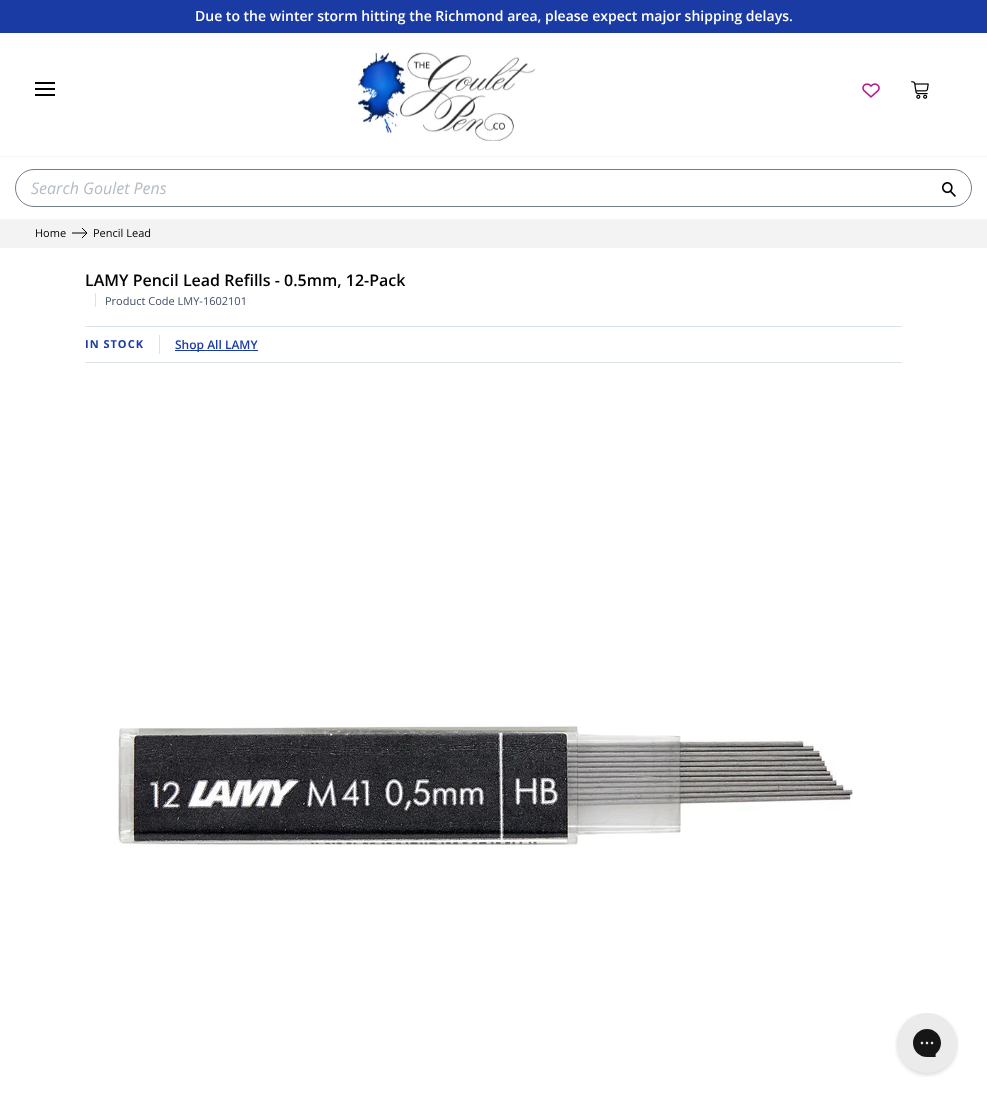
<svg xmlns="http://www.w3.org/2000/svg" width="987" height="1100" viewBox="0 0 987 1100">
  <rect width="100%" height="100%" fill="#fff"/>
  <path d="M0 0h987v33H0z" fill="#193ba3"/>
  <path d="M0 156h987v1H0z" fill="#f0f5f5"/>
  <path d="M35 88h20v2H35z" fill="#000"/>
  <path d="M35 82h20v2H35z" fill="#000"/>
  <path d="M35 94h20v2H35z" fill="#000"/>
  <image x="358" y="52" width="177" height="89" href="img/1.png"/>
  <image x="862" y="83" width="18" height="15" href="img/2.png"/>
  <image x="911" y="81" width="18" height="18" href="img/3.png"/>
  <path d="M0 219h987v1H0z" fill="#f0f5f5"/>
  <rect x="15.5" y="169.5" width="956" height="37" rx="18.5" fill="none" stroke="#757d8b"/>
  <image x="942" y="182" width="14" height="15" href="img/4.png"/>
  <path d="M0 220h987v28H0z" fill="#f3f3f3"/>
  <path d="M72 233H87M82 228L87 233L82 238" fill="none" stroke="#000" stroke-linejoin="round"/>
  <path d="M95 293h1v14H95z" fill="#dbe3eb"/>
  <path d="M85 326h817v1H85z" fill="#dbe3eb"/>
  <path d="M85 362h817v1H85z" fill="#dbe3eb"/>
  <path d="M159 335h1v19H159z" fill="#dbe3eb"/>
  <path d="M175 350h83v1H175z" fill="#193ba3"/>
  <image x="117" y="724" width="736" height="123" href="img/5.png"/>
  <image x="895" y="1013" width="64" height="64" href="img/6.png"/>
  <text x="195" y="21" font-family="Open Sans" font-size="14" font-weight="600" fill="#fff">Due to the winter storm hitting the Richmond area, please expect major shipping delays.</text>
  <text x="31" y="194" font-family="Open Sans" font-size="16" font-style="italic" fill="#b5bbc2">Search Goulet Pens</text>
  <g font-family="Open Sans" font-size="11" fill="#000">
    <text x="35" y="237">Home</text>
    <text x="93" y="237">Pencil Lead</text>
  </g>
  <text x="85" y="286" font-family="Open Sans" font-size="16" font-weight="600" fill="#000">LAMY Pencil Lead Refills - 0.5mm, 12-Pack</text>
  <text x="105" y="305" font-family="Open Sans" font-size="11" fill="#414e65">Product Code LMY-1602101</text>
  <text x="85" y="348" font-family="Open Sans" font-size="11" font-weight="bold" letter-spacing="1" fill="#193ba3">IN STOCK</text>
  <text x="175" y="349" font-family="Open Sans" font-size="12" font-weight="600" fill="#193ba3">Shop All LAMY</text>
</svg>
